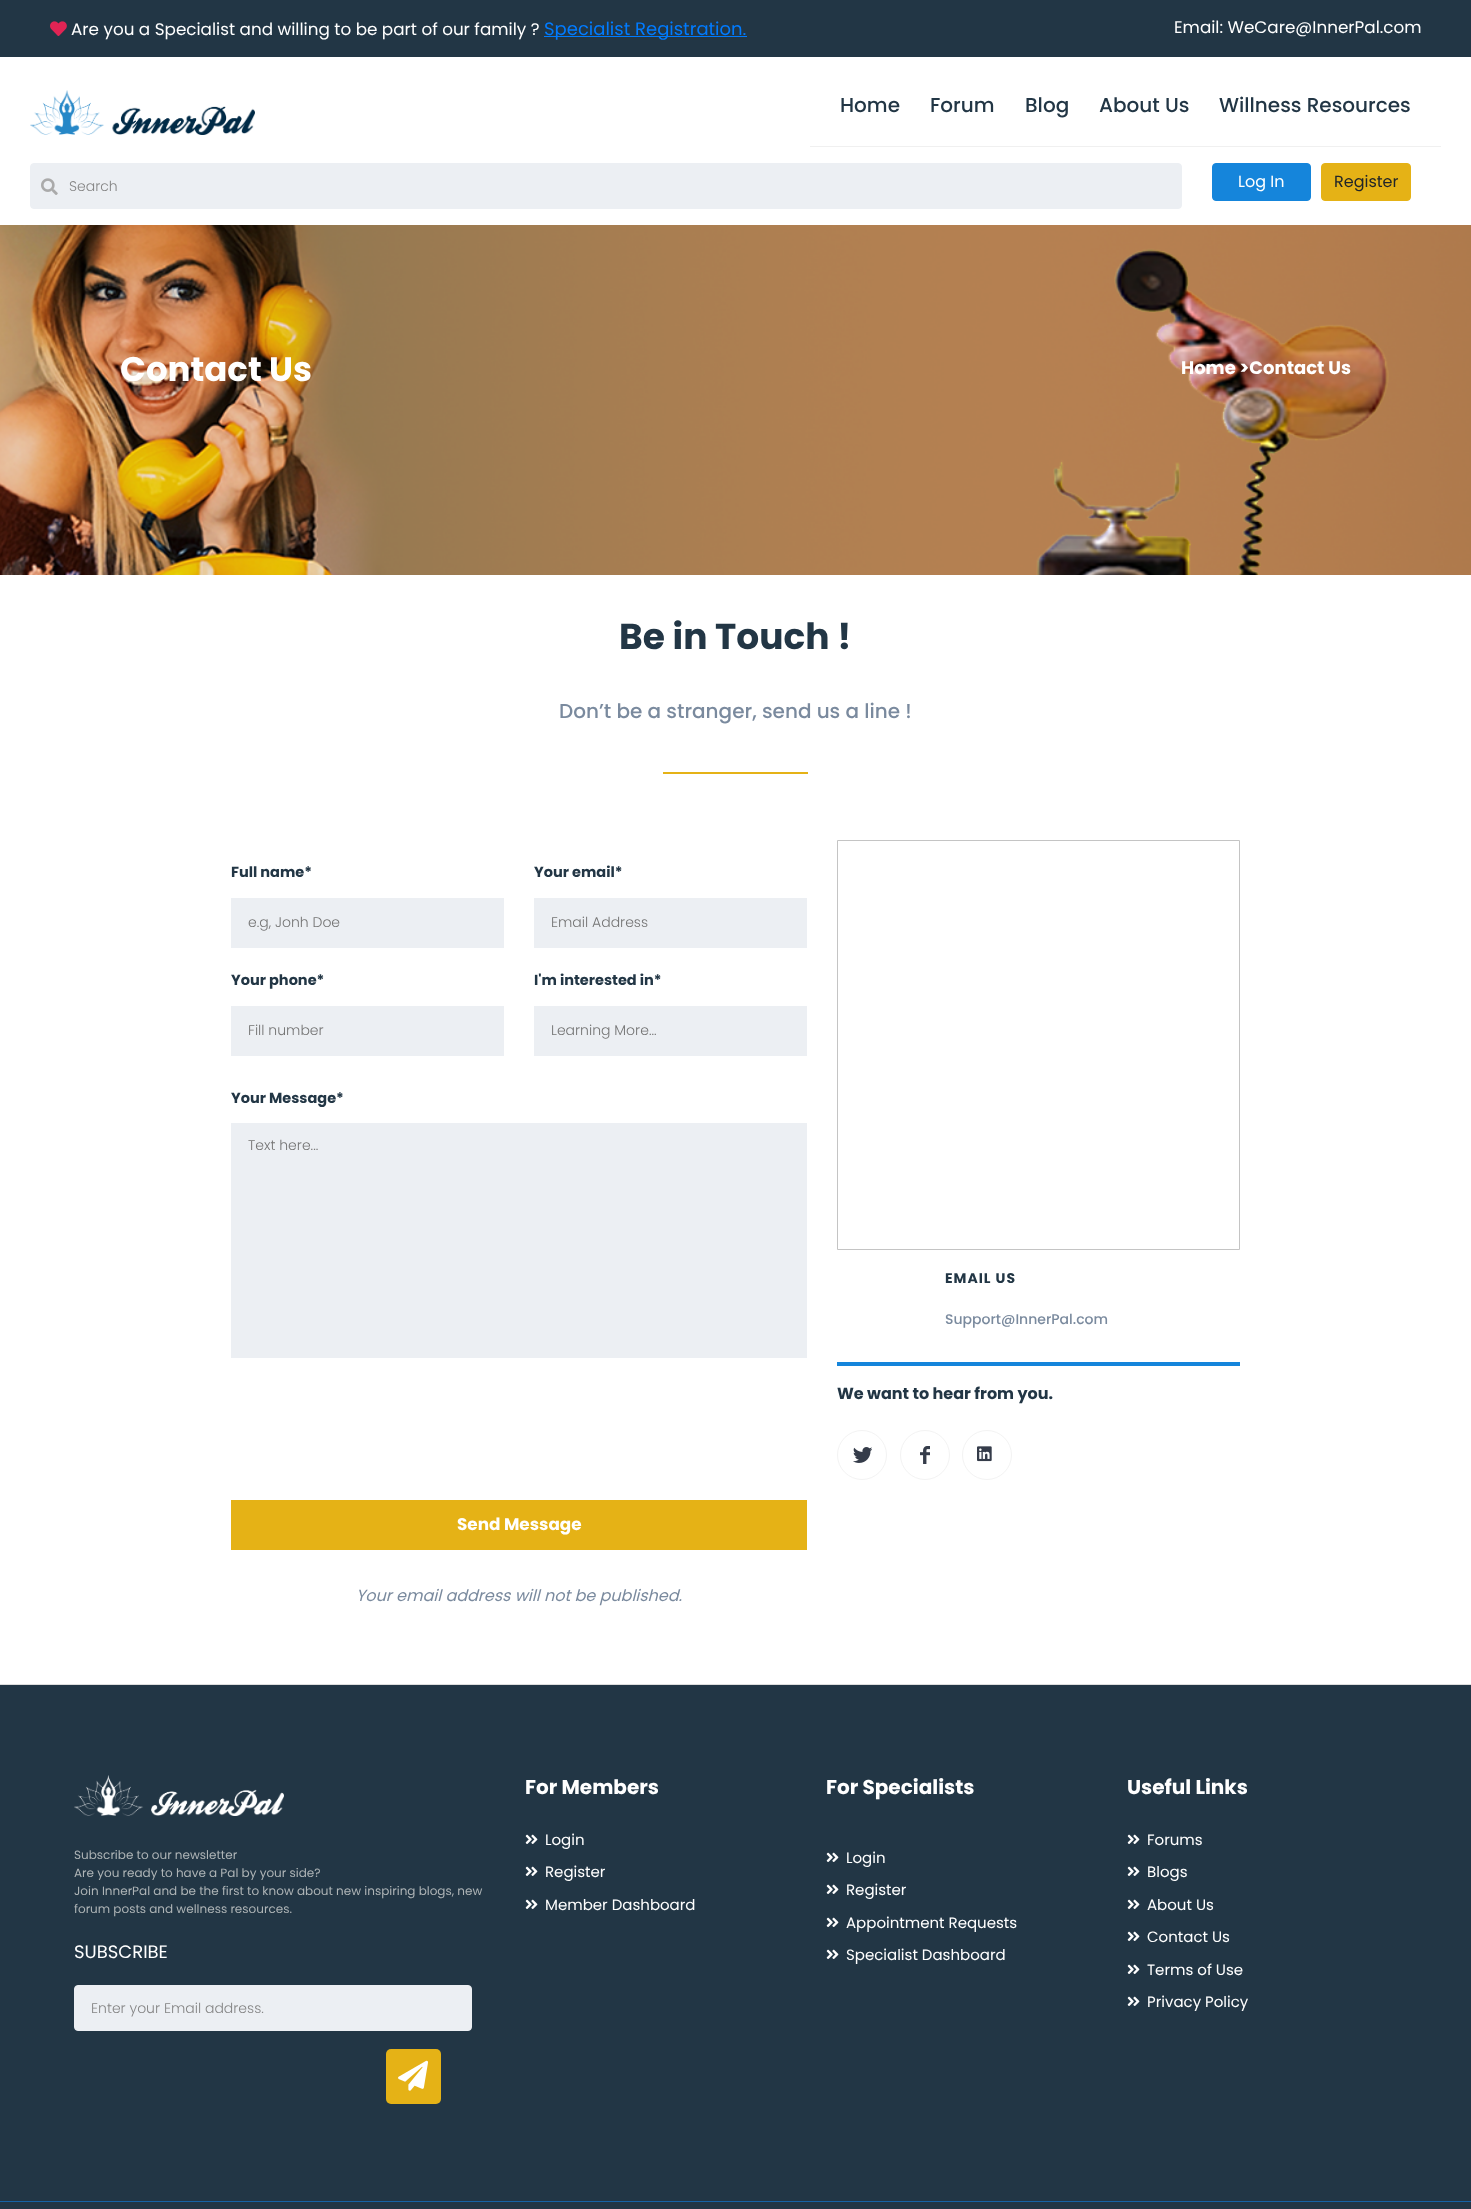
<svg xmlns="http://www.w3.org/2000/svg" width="1471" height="2209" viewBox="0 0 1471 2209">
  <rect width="100%" height="100%" fill="#fff"/>
  <path d="M0 0h1471v57H0z" fill="#223645"/>
  <image x="50" y="21" width="17" height="15" href="img/1.png"/>
  <path d="M544 36h203v1H544z" fill="#007bff"/>
  <image x="30" y="90" width="225" height="45" href="img/2.png"/>
  <path d="M810 146h631v1H810z" fill="#f0f0f0"/>
  <rect x="30.5" y="163.5" width="1151" height="45" rx="3.5" fill="#eceff3" stroke="#eceff3"/>
  <image x="41" y="178" width="17" height="17" href="img/3.png"/>
  <rect x="1212.5" y="163.5" width="98" height="37" rx="3.5" fill="#1585db" stroke="#1585db"/>
  <rect x="1321.5" y="163.5" width="89" height="37" rx="3.5" fill="#e5b216" stroke="#e5b216"/>
  <image x="0" y="225" width="1471" height="350" href="img/4.png"/>
  <path d="M663 772h145v2H663z" fill="#e5b216"/>
  <path d="M231 898h273v50H231z" fill="#eceff3"/>
  <path d="M231 1006h273v50H231z" fill="#eceff3"/>
  <path d="M534 898h273v50H534z" fill="#eceff3"/>
  <path d="M534 1006h273v50H534z" fill="#eceff3"/>
  <path d="M231 1123h576v235H231z" fill="#eceff3"/>
  <path d="M231 1500h576v50H231z" fill="#e5b216"/>
  <path d="M837.5 840.5h402v409H837.5z" fill="none" stroke="#c4c4c4"/>
  <path d="M837 1362h403v4H837z" fill="#1585db"/>
  <circle cx="862" cy="1455" r="24.5" fill="none" stroke="#f3f3f3"/>
  <image x="853" y="1447" width="19" height="16" href="img/5.png"/>
  <circle cx="925" cy="1455" r="24.5" fill="none" stroke="#f3f3f3"/>
  <image x="920" y="1446" width="10" height="18" href="img/6.png"/>
  <circle cx="987" cy="1455" r="24.5" fill="none" stroke="#f3f3f3"/>
  <image x="977" y="1446" width="15" height="16" href="img/7.png"/>
  <path d="M0 1685h1471v524H0z" fill="#223645"/>
  <path d="M0 1684h1471v1H0z" fill="#ddd"/>
  <image x="74" y="1775" width="210" height="41" href="img/8.png"/>
  <rect x="74.5" y="1985.5" width="397" height="45" rx="3.5" fill="#eceff3" stroke="#eceff3"/>
  <rect x="386" y="2049" width="55" height="55" rx="5" fill="#e5b216"/>
  <image x="398" y="2060" width="31" height="31" href="img/9.png"/>
  <image x="525" y="1834" width="13" height="10" href="img/10.png"/>
  <image x="525" y="1866" width="13" height="10" href="img/10.png"/>
  <image x="525" y="1899" width="13" height="10" href="img/10.png"/>
  <image x="826" y="1852" width="13" height="10" href="img/10.png"/>
  <image x="826" y="1884" width="13" height="10" href="img/10.png"/>
  <image x="826" y="1917" width="13" height="10" href="img/10.png"/>
  <image x="826" y="1949" width="13" height="10" href="img/10.png"/>
  <image x="1127" y="1834" width="13" height="10" href="img/10.png"/>
  <image x="1127" y="1866" width="13" height="10" href="img/10.png"/>
  <image x="1127" y="1899" width="13" height="10" href="img/10.png"/>
  <image x="1127" y="1931" width="13" height="10" href="img/10.png"/>
  <image x="1127" y="1964" width="13" height="10" href="img/10.png"/>
  <image x="1127" y="1996" width="13" height="10" href="img/10.png"/>
  <path d="M0 2201h1471v1H0z" fill="#1663a6"/>
  <text x="71" y="35" font-family="Poppins" font-size="16.8" fill="#fff">Are you a Specialist and willing to be part of our family ?</text>
  <text x="544" y="35" font-family="Poppins" font-size="18" fill="#007bff">Specialist Registration.</text>
  <text x="1174" y="33" font-family="Poppins" font-size="16.8" fill="#fff">Email: WeCare@InnerPal.com</text>
  <g font-family="Poppins" font-size="20" font-weight="500" fill="#223645">
    <text x="840" y="112">Home</text>
    <text x="930" y="112">Forum</text>
    <text x="1025" y="112">Blog</text>
    <text x="1099" y="112">About Us</text>
    <text x="1219" y="112">Willness Resources</text>
  </g>
  <text x="69" y="191" font-family="Poppins" font-size="14" font-weight="300" fill="#858585">Search</text>
  <text x="1238" y="187" font-family="Poppins" font-size="16" fill="#fff">Log In</text>
  <text x="1334" y="187" font-family="Poppins" font-size="16" fill="#212529">Register</text>
  <text x="120" y="381" font-family="Poppins" font-size="34" font-weight="bold" fill="#fff">Contact Us</text>
  <text x="1181" y="374" font-family="Poppins" font-size="18" font-weight="bold" fill="#fff">Home &gt;Contact Us</text>
  <text x="619" y="649" font-family="Poppins" font-size="36" font-weight="bold" fill="#223645">Be in Touch !</text>
  <text x="559" y="718" font-family="Poppins" font-size="20" font-weight="500" fill="#7a8a9e">Don’t be a stranger, send us a line !</text>
  <text x="231" y="877" font-family="Poppins" font-size="14.5" font-weight="bold" fill="#223645">Full name*</text>
  <text x="248" y="927" font-family="Poppins" font-size="14" font-weight="300" fill="#757575">e.g, Jonh Doe</text>
  <text x="231" y="985" font-family="Poppins" font-size="14.5" font-weight="bold" fill="#223645">Your phone*</text>
  <text x="248" y="1035" font-family="Poppins" font-size="14" font-weight="300" fill="#757575">Fill number</text>
  <text x="534" y="877" font-family="Poppins" font-size="14.5" font-weight="bold" fill="#223645">Your email*</text>
  <text x="551" y="927" font-family="Poppins" font-size="14" font-weight="300" fill="#757575">Email Address</text>
  <text x="534" y="985" font-family="Poppins" font-size="14.5" font-weight="bold" fill="#223645">I'm interested in*</text>
  <text x="551" y="1035" font-family="Poppins" font-size="14" font-weight="300" fill="#757575">Learning More...</text>
  <text x="231" y="1103" font-family="Poppins" font-size="14.5" font-weight="bold" fill="#223645">Your Message*</text>
  <text x="248" y="1150" font-family="Poppins" font-size="14" font-weight="300" fill="#757575">Text here...</text>
  <text x="457" y="1530" font-family="Poppins" font-size="16.8" font-weight="bold" fill="#fff">Send Message</text>
  <text x="356" y="1601" font-family="Poppins" font-size="16" font-style="italic" fill="#7a8a9e">Your email address will not be published.</text>
  <text x="945" y="1283" font-family="Poppins" font-size="14" font-weight="bold" letter-spacing="1" fill="#223645">EMAIL US</text>
  <text x="945" y="1324" font-family="Poppins" font-size="14" font-weight="500" fill="#7a8a9e">Support@InnerPal.com</text>
  <text x="837" y="1399" font-family="Poppins" font-size="16" font-weight="bold" fill="#223645">We want to hear from you.</text>
  <g font-family="Poppins" font-size="12" fill="#aeb4b6">
    <text x="74" y="1859">Subscribe to our newsletter</text>
    <text x="74" y="1877">Are you ready to have a Pal by your side?</text>
    <text x="74" y="1895">Join InnerPal and be the first to know about new inspiring blogs, new</text>
    <text x="74" y="1913">forum posts and wellness resources.</text>
  </g>
  <text x="74" y="1958" font-family="Poppins" font-size="18" fill="#fff">SUBSCRIBE</text>
  <text x="91" y="2013" font-family="Poppins" font-size="14" font-weight="300" fill="#858585">Enter your Email address.</text>
  <text x="525" y="1794" font-family="Poppins" font-size="20" font-weight="bold" fill="#fff">For Members</text>
  <g font-family="Poppins" font-size="15" fill="#fff">
    <text x="545" y="1845">Login</text>
    <text x="545" y="1877">Register</text>
    <text x="545" y="1910">Member Dashboard</text>
  </g>
  <text x="826" y="1794" font-family="Poppins" font-size="20" font-weight="bold" fill="#fff">For Specialists</text>
  <g font-family="Poppins" font-size="15" fill="#fff">
    <text x="846" y="1863">Login</text>
    <text x="846" y="1895">Register</text>
    <text x="846" y="1928">Appointment Requests</text>
    <text x="846" y="1960">Specialist Dashboard</text>
  </g>
  <text x="1127" y="1794" font-family="Poppins" font-size="20" font-weight="bold" fill="#fff">Useful Links</text>
  <g font-family="Poppins" font-size="15" fill="#fff">
    <text x="1147" y="1845">Forums</text>
    <text x="1147" y="1877">Blogs</text>
    <text x="1147" y="1910">About Us</text>
    <text x="1147" y="1942">Contact Us</text>
    <text x="1147" y="1975">Terms of Use</text>
    <text x="1147" y="2007">Privacy Policy</text>
  </g>
</svg>
